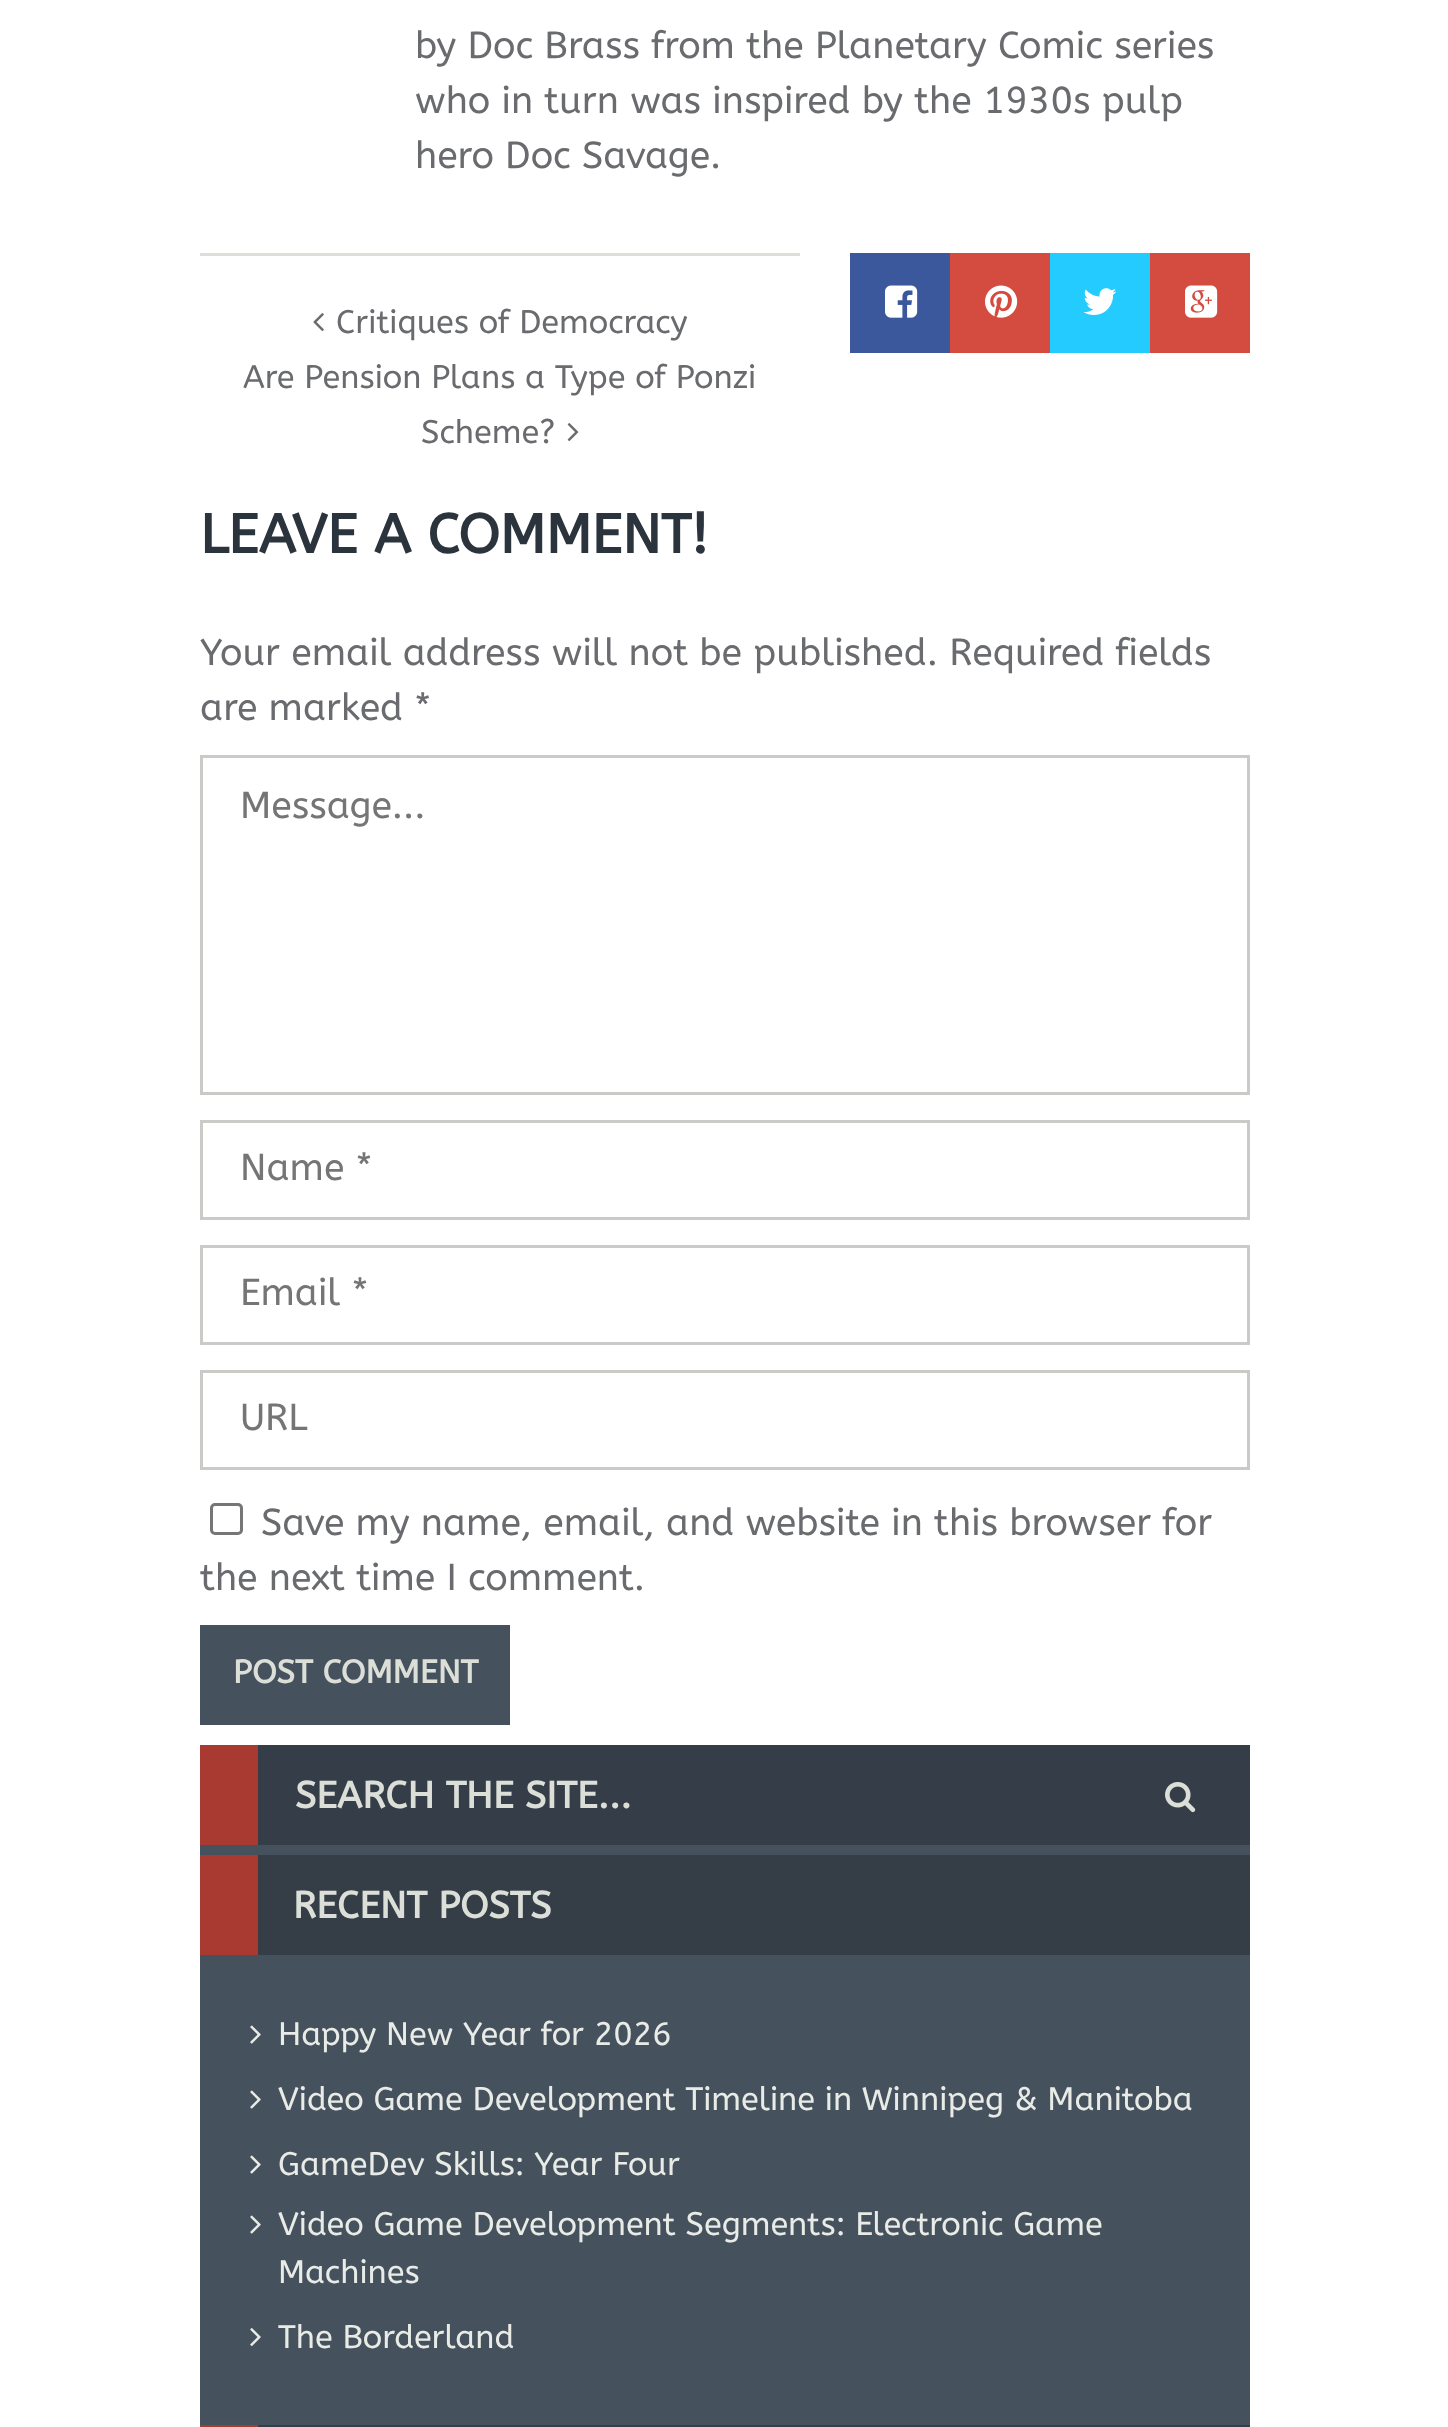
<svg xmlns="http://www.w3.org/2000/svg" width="1448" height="2427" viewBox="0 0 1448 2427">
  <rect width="100%" height="100%" fill="#fff"/>
  <path d="M200 253h600v3H200z" fill="#dbdfd8"/>
  <image x="313" y="313" width="11" height="18" href="img/1.png"/>
  <image x="567" y="423" width="12" height="18" href="img/2.png"/>
  <path d="M850 253h100v100H850z" fill="#3a589b"/>
  <image x="885" y="285" width="33" height="33" href="img/3.png"/>
  <path d="M950 253h100v100H950z" fill="#d44b3f"/>
  <image x="985" y="285" width="33" height="33" href="img/4.png"/>
  <path d="M1050 253h100v100H1050z" fill="#23cbff"/>
  <image x="1083" y="288" width="34" height="27" href="img/5.png"/>
  <path d="M1150 253h100v100H1150z" fill="#d44b3f"/>
  <image x="1185" y="285" width="33" height="33" href="img/6.png"/>
  <path d="M201.5 756.5h1047v337H201.5z" fill="none" stroke="#c9ccc6" stroke-width="3"/>
  <path d="M201.5 1121.5h1047v97H201.5z" fill="none" stroke="#c9ccc6" stroke-width="3"/>
  <path d="M201.5 1246.5h1047v97H201.5z" fill="none" stroke="#c9ccc6" stroke-width="3"/>
  <path d="M201.5 1371.5h1047v97H201.5z" fill="none" stroke="#c9ccc6" stroke-width="3"/>
  <rect x="211.5" y="1504.5" width="30" height="29" rx="3.5" fill="none" stroke="#767676" stroke-width="3"/>
  <path d="M200 1625h310v100H200z" fill="#46515e"/>
  <path d="M200 1845h1050v580H200z" fill="#46515e"/>
  <path d="M258 1745h992v100H258z" fill="#353e48"/>
  <path d="M200 1745h58v100H200z" fill="#a83a32"/>
  <image x="1165" y="1782" width="31" height="31" href="img/7.png"/>
  <path d="M258 1855h992v100H258z" fill="#353e47"/>
  <path d="M200 1855h58v100H200z" fill="#a83a32"/>
  <image x="250" y="2025" width="11" height="19" href="img/8.png"/>
  <image x="250" y="2090" width="11" height="19" href="img/8.png"/>
  <image x="250" y="2155" width="11" height="19" href="img/8.png"/>
  <image x="250" y="2215" width="11" height="19" href="img/8.png"/>
  <image x="250" y="2328" width="11" height="18" href="img/9.png"/>
  <path d="M258 2425h992v2H258z" fill="#353e47"/>
  <path d="M200 2425h58v2H200z" fill="#a83a32"/>
  <g font-family="ABeeZee" font-size="37.5" fill="#696b6e">
    <text x="415" y="58">by Doc Brass from the Planetary Comic series</text>
    <text x="415" y="113">who in turn was inspired by the 1930s pulp</text>
    <text x="415" y="168">hero Doc Savage.</text>
  </g>
  <g font-family="ABeeZee" font-size="32.5" fill="#696b6e">
    <text x="336" y="333">Critiques of Democracy</text>
    <text x="243" y="388">Are Pension Plans a Type of Ponzi</text>
    <text x="421" y="443">Scheme?</text>
  </g>
  <text x="200" y="553" font-family="ABeeZee" font-size="55" font-weight="bold" fill="#2b333c">LEAVE A COMMENT!</text>
  <g font-family="ABeeZee" font-size="37.5" fill="#696b6e">
    <text x="200" y="665">Your email address will not be published. Required fields</text>
    <text x="200" y="720">are marked *</text>
  </g>
  <g font-family="ABeeZee" font-size="37.5" fill="#757575">
    <text x="240" y="818">Message...</text>
    <text x="240" y="1180">Name *</text>
    <text x="240" y="1305">Email *</text>
    <text x="240" y="1430">URL</text>
  </g>
  <g font-family="ABeeZee" font-size="37.5" fill="#696b6e">
    <text x="261" y="1535">Save my name, email, and website in this browser for</text>
    <text x="200" y="1590">the next time I comment.</text>
  </g>
  <text x="233" y="1683" font-family="ABeeZee" font-size="32.5" font-weight="bold" fill="#dbdfd8">POST COMMENT</text>
  <g font-family="ABeeZee" font-size="37.5" font-weight="bold" fill="#dbdfd8">
    <text x="295" y="1808">SEARCH THE SITE...</text>
    <text x="293" y="1918">RECENT POSTS</text>
  </g>
  <g font-family="ABeeZee" font-size="32.5" fill="#e9ece6">
    <text x="278" y="2045">Happy New Year for 2026</text>
    <text x="278" y="2110">Video Game Development Timeline in Winnipeg &amp; Manitoba</text>
    <text x="278" y="2175">GameDev Skills: Year Four</text>
    <text x="278" y="2235">Video Game Development Segments: Electronic Game</text>
    <text x="278" y="2283">Machines</text>
    <text x="278" y="2348">The Borderland</text>
  </g>
</svg>
